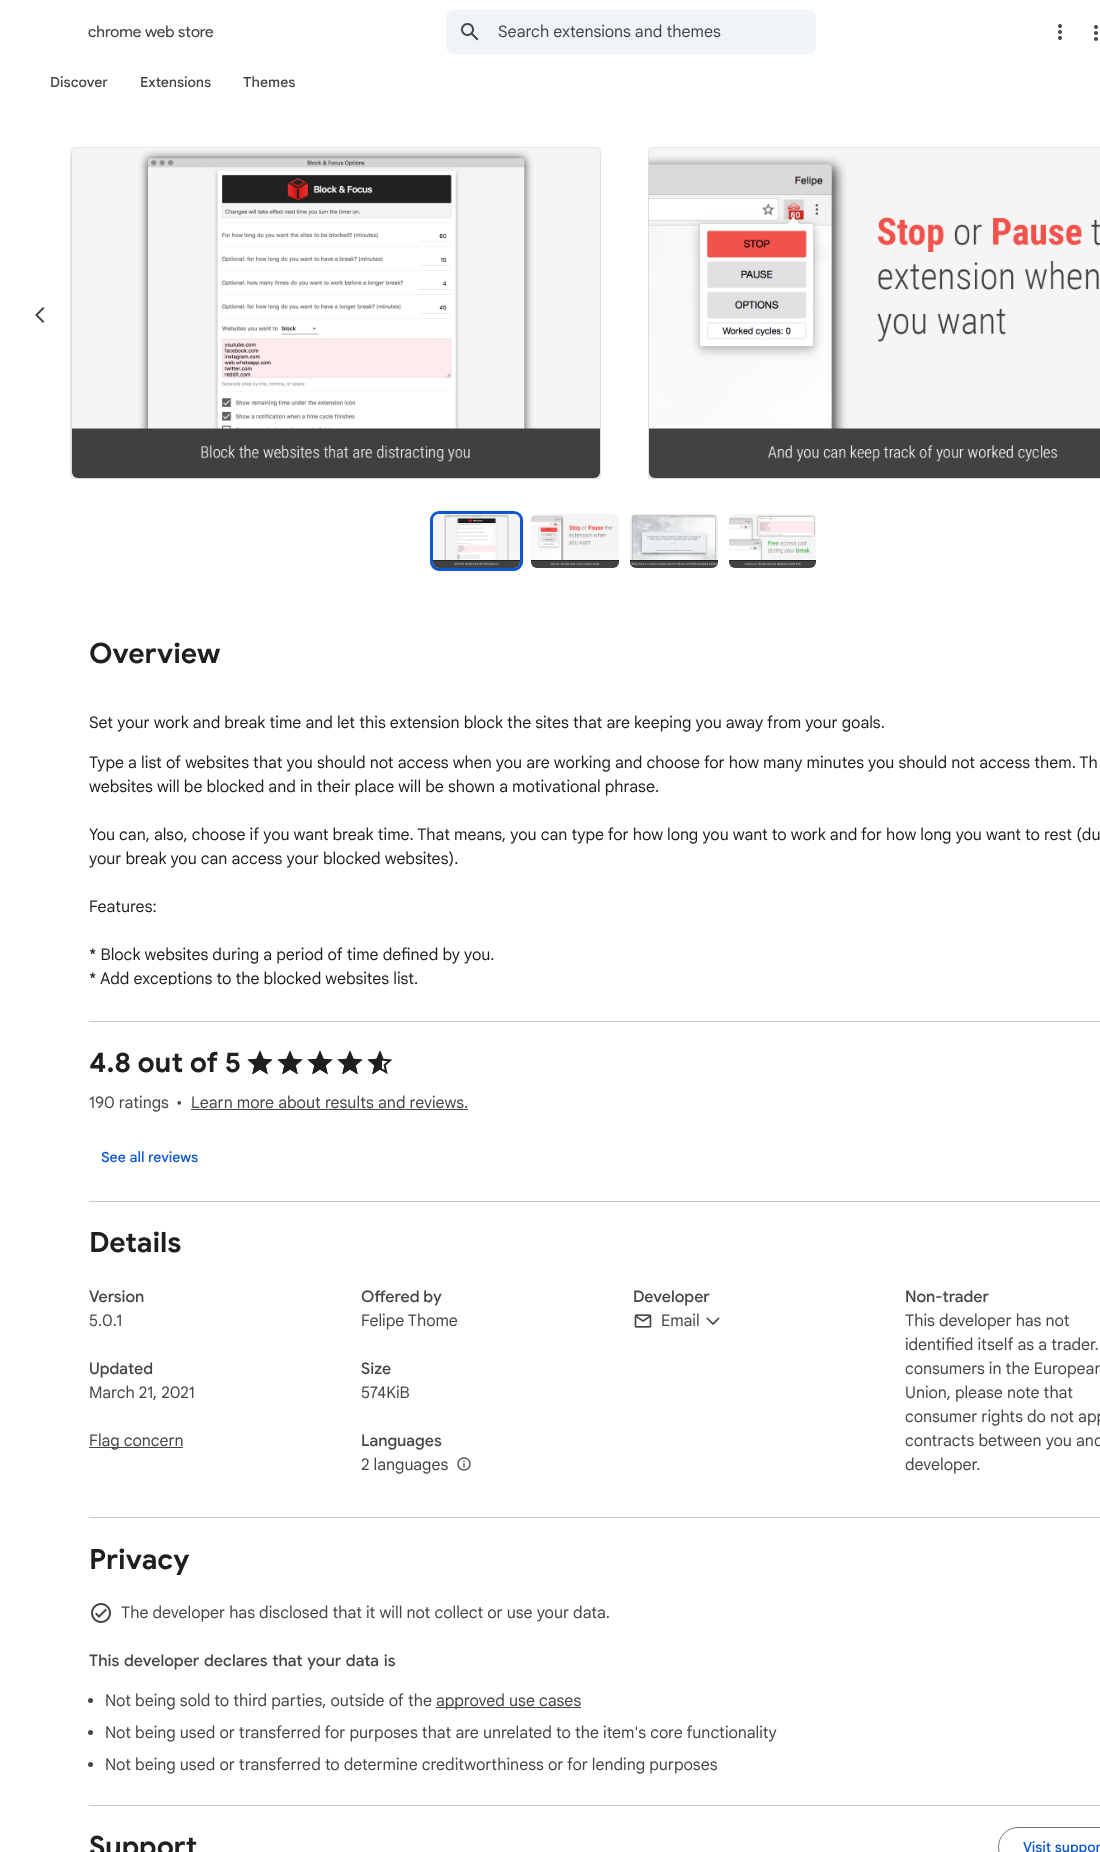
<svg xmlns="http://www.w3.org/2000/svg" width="1100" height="1852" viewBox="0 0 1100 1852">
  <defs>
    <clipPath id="clip1"><path d="M89 695h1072v290H89z"/></clipPath>
  </defs>
  <rect width="100%" height="100%" fill="#fff"/>
  <image x="61" y="21" width="6" height="1" href="img/1.png"/>
  <rect x="446" y="10" width="370" height="44" rx="8" fill="#f0f4f9"/>
  <image x="461" y="23" width="18" height="18" href="img/2.png"/>
  <image x="1058" y="24" width="4" height="16" href="img/3.png"/>
  <image x="1094" y="25" width="4" height="16" href="img/4.png"/>
  <image x="35" y="307" width="10" height="16" href="img/5.png"/>
  <image x="70" y="147" width="531" height="332" href="img/6.png"/>
  <image x="648" y="147" width="452" height="332" href="img/7.png"/>
  <rect x="431.5" y="512.5" width="90" height="57" rx="7.5" fill="none" stroke="#0b57d0" stroke-width="3"/>
  <image x="433" y="514" width="87" height="54" href="img/8.png"/>
  <image x="531" y="514" width="88" height="54" href="img/9.png"/>
  <image x="630" y="514" width="88" height="54" href="img/10.png"/>
  <image x="729" y="514" width="87" height="54" href="img/11.png"/>
  <path d="M89 1021h1011v1H89z" fill="#c4c7c5"/>
  <path d="M89 1201h1011v1H89z" fill="#c4c7c5"/>
  <image x="247" y="1050" width="26" height="25" href="img/12.png"/>
  <image x="277" y="1050" width="26" height="25" href="img/12.png"/>
  <image x="307" y="1050" width="26" height="25" href="img/12.png"/>
  <image x="337" y="1050" width="26" height="25" href="img/12.png"/>
  <image x="367" y="1050" width="26" height="25" href="img/12.png"/>
  <image x="247" y="1050" width="26" height="25" href="img/13.png"/>
  <image x="277" y="1050" width="26" height="25" href="img/13.png"/>
  <image x="307" y="1050" width="26" height="25" href="img/13.png"/>
  <image x="337" y="1050" width="26" height="25" href="img/13.png"/>
  <image x="367" y="1050" width="15" height="25" href="img/14.png"/>
  <path d="M191 1109h277v1H191z" fill="#444746"/>
  <path d="M89 1517h1011v1H89z" fill="#c4c7c5"/>
  <image x="634" y="1314" width="18" height="14" href="img/15.png"/>
  <image x="706" y="1317" width="14" height="8" href="img/16.png"/>
  <path d="M89 1447h94v1H89z" fill="#444746"/>
  <image x="457" y="1457" width="14" height="14" href="img/17.png"/>
  <path d="M89 1805h1011v1H89z" fill="#c4c7c5"/>
  <image x="91" y="1603" width="20" height="20" href="img/18.png"/>
  <circle cx="90.5" cy="1700.5" r="2.5" fill="#444746"/>
  <path d="M436 1707h145v1H436z" fill="#444746"/>
  <circle cx="90.5" cy="1732.5" r="2.5" fill="#444746"/>
  <circle cx="90.5" cy="1764.5" r="2.5" fill="#444746"/>
  <rect x="998.5" y="1827.5" width="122" height="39" rx="19.5" fill="none" stroke="#747775"/>
  <text x="88" y="37" font-family="Product Sans" font-size="16" fill="#444746">chrome web store</text>
  <text x="498" y="37" font-family="Google Sans" font-size="16" fill="#444746">Search extensions and themes</text>
  <g font-family="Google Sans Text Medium" font-size="14" font-weight="500" fill="#444746">
    <text x="50" y="87">Discover</text>
    <text x="140" y="87">Extensions</text>
    <text x="243" y="87">Themes</text>
  </g>
  <text x="89" y="663" font-family="Google Sans" font-size="28" font-weight="bold" fill="#1f1f1f">Overview</text>
  <g font-family="Google Sans" font-size="16" fill="#1f1f1f">
    <text x="89" y="728">Set your work and break time and let this extension block the sites that are keeping you away from your goals.</text>
    <text x="89" y="768">Type a list of websites that you should not access when you are working and choose for how many minutes you should not access them. Th</text>
    <text x="89" y="792">websites will be blocked and in their place will be shown a motivational phrase.</text>
    <text x="89" y="840">You can, also, choose if you want break time. That means, you can type for how long you want to work and for how long you want to rest (du</text>
    <text x="89" y="864">your break you can access your blocked websites).</text>
    <text x="89" y="912">Features:</text>
    <text x="89" y="960">* Block websites during a period of time defined by you.</text>
  </g>
  <g clip-path="url(#clip1)">
    <text x="89" y="984" font-family="Google Sans" font-size="16" fill="#1f1f1f">* Add exceptions to the blocked websites list.</text>
  </g>
  <text x="89" y="1072" font-family="Google Sans" font-size="28" font-weight="bold" fill="#1f1f1f">4.8 out of 5</text>
  <g font-family="Google Sans" font-size="16" fill="#444746">
    <text x="89" y="1108">190 ratings</text>
    <text x="176" y="1108">•</text>
    <text x="191" y="1108">Learn more about results and reviews.</text>
  </g>
  <text x="101" y="1162" font-family="Google Sans Text Medium" font-size="14" font-weight="500" fill="#0b57d0">See all reviews</text>
  <text x="89" y="1252" font-family="Google Sans" font-size="28" font-weight="bold" fill="#1f1f1f">Details</text>
  <text x="89" y="1302" font-family="Google Sans" font-size="16" font-weight="500" fill="#444746">Version</text>
  <text x="89" y="1326" font-family="Google Sans" font-size="16" fill="#444746">5.0.1</text>
  <text x="361" y="1302" font-family="Google Sans" font-size="16" font-weight="500" fill="#444746">Offered by</text>
  <text x="361" y="1326" font-family="Google Sans" font-size="16" fill="#444746">Felipe Thome</text>
  <text x="633" y="1302" font-family="Google Sans" font-size="16" font-weight="500" fill="#444746">Developer</text>
  <text x="661" y="1326" font-family="Google Sans" font-size="16" fill="#444746">Email</text>
  <text x="905" y="1302" font-family="Google Sans" font-size="16" font-weight="500" fill="#444746">Non-trader</text>
  <g font-family="Google Sans" font-size="16" fill="#444746">
    <text x="905" y="1326">This developer has not</text>
    <text x="905" y="1350">identified itself as a trader.</text>
    <text x="905" y="1374">consumers in the European</text>
    <text x="905" y="1398">Union, please note that</text>
    <text x="905" y="1422">consumer rights do not app</text>
    <text x="905" y="1446">contracts between you and</text>
    <text x="905" y="1470">developer.</text>
  </g>
  <text x="89" y="1374" font-family="Google Sans" font-size="16" font-weight="500" fill="#444746">Updated</text>
  <text x="89" y="1398" font-family="Google Sans" font-size="16" fill="#444746">March 21, 2021</text>
  <text x="361" y="1374" font-family="Google Sans" font-size="16" font-weight="500" fill="#444746">Size</text>
  <g font-family="Google Sans" font-size="16" fill="#444746">
    <text x="361" y="1398">574KiB</text>
    <text x="89" y="1446">Flag concern</text>
  </g>
  <text x="361" y="1446" font-family="Google Sans" font-size="16" font-weight="500" fill="#444746">Languages</text>
  <text x="361" y="1470" font-family="Google Sans" font-size="16" fill="#444746">2 languages</text>
  <text x="89" y="1569" font-family="Google Sans" font-size="28" font-weight="bold" fill="#1f1f1f">Privacy</text>
  <text x="121" y="1618" font-family="Google Sans" font-size="16" fill="#444746">The developer has disclosed that it will not collect or use your data.</text>
  <text x="89" y="1666" word-spacing="1" font-family="Google Sans" font-size="16" font-weight="500" fill="#444746">This developer declares that your data is</text>
  <g font-family="Google Sans" font-size="16" fill="#444746">
    <text x="105" y="1706">Not being sold to third parties, outside of the</text>
    <text x="436" y="1706">approved use cases</text>
    <text x="105" y="1738">Not being used or transferred for purposes that are unrelated to the item's core functionality</text>
    <text x="105" y="1770">Not being used or transferred to determine creditworthiness or for lending purposes</text>
  </g>
  <text x="89" y="1856" font-family="Google Sans" font-size="28" font-weight="bold" fill="#1f1f1f">Support</text>
  <text x="1023" y="1852" font-family="Google Sans Text Medium" font-size="14" font-weight="500" fill="#0b57d0">Visit suppor</text>
</svg>
